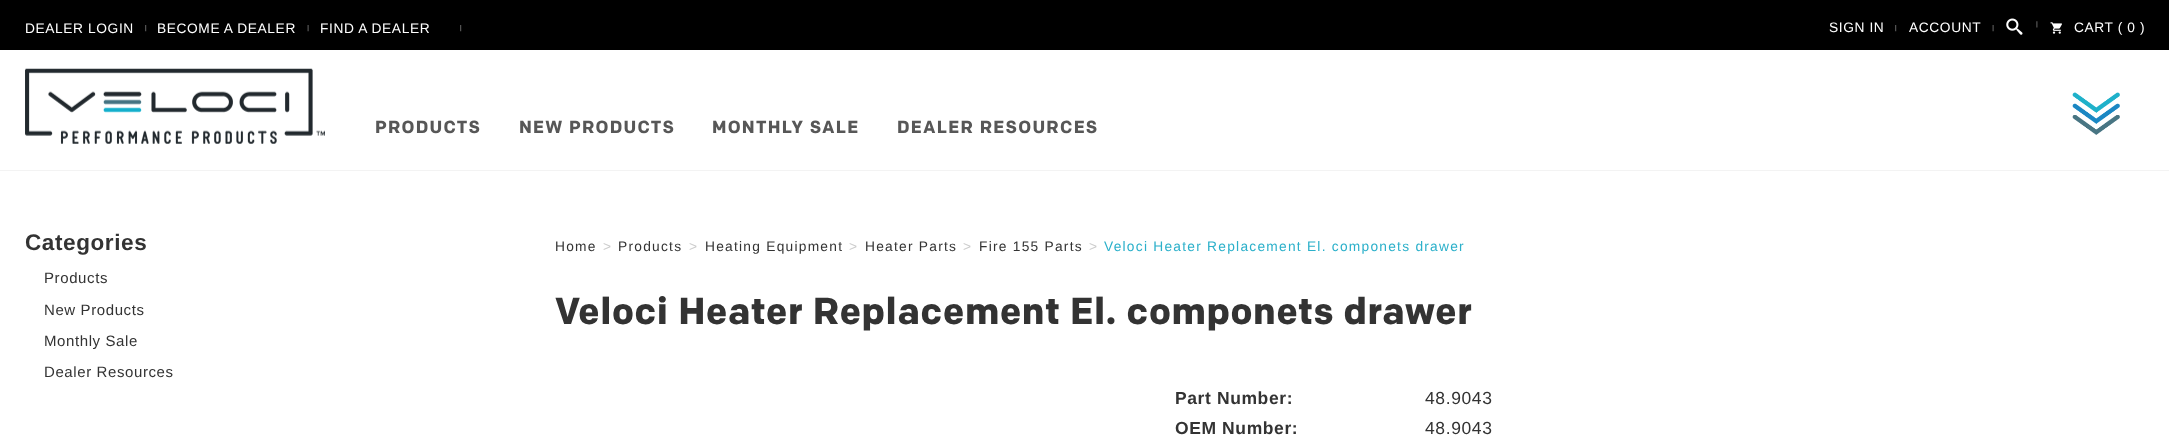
<svg xmlns="http://www.w3.org/2000/svg" width="2169" height="444" viewBox="0 0 2169 444">
  <rect width="100%" height="100%" fill="#fff"/>
  <path d="M0 0h2169v50H0z" fill="#000"/>
  <image x="145" y="25" width="2" height="7" href="img/1.png"/>
  <image x="307" y="25" width="2" height="7" href="img/2.png"/>
  <image x="460" y="25" width="2" height="7" href="img/1.png"/>
  <path d="M0 170h2169v1H0z" fill="#f3f3f3"/>
  <image x="25" y="68" width="300" height="76" href="img/3.png"/>
  <image x="1895" y="25" width="2" height="7" href="img/1.png"/>
  <image x="1992" y="25" width="2" height="7" href="img/2.png"/>
  <image x="2036" y="21" width="2" height="7" href="img/4.png"/>
  <image x="2006" y="18" width="17" height="17" href="img/5.png"/>
  <image x="2050" y="22" width="12" height="12" href="img/6.png"/>
  <image x="2072" y="92" width="48" height="43" href="img/7.png"/>
  <g font-family="Liberation Sans" font-size="13.75" letter-spacing="0.6" fill="#fff">
    <text x="25" y="33">DEALER LOGIN</text>
    <text x="157" y="33">BECOME A DEALER</text>
    <text x="320" y="33">FIND A DEALER</text>
    <text x="1829" y="32">SIGN IN</text>
    <text x="1909" y="32">ACCOUNT</text>
    <text x="2074" y="32">CART ( 0 )</text>
  </g>
  <g font-family="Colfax" font-size="17.5" font-weight="bold" letter-spacing="1.25" fill="#575757">
    <text x="375" y="133">PRODUCTS</text>
    <text x="519" y="133">NEW PRODUCTS</text>
    <text x="712" y="133">MONTHLY SALE</text>
    <text x="897" y="133">DEALER RESOURCES</text>
  </g>
  <text x="25" y="250" font-family="Liberation Sans" font-size="22.5" font-weight="bold" letter-spacing="0.6" fill="#333">Categories</text>
  <g font-family="Liberation Sans" font-size="15" letter-spacing="0.6" fill="#333">
    <text x="44" y="283">Products</text>
    <text x="44" y="315">New Products</text>
    <text x="44" y="346">Monthly Sale</text>
    <text x="44" y="377">Dealer Resources</text>
  </g>
  <text x="555" y="251" font-family="Liberation Sans" font-size="13.75" letter-spacing="1.25" fill="#333">Home</text>
  <text x="603" y="251" font-family="Liberation Sans" font-size="13.75" letter-spacing="1.25" fill="#ccc">&gt;</text>
  <text x="618" y="251" font-family="Liberation Sans" font-size="13.75" letter-spacing="1.25" fill="#333">Products</text>
  <text x="689" y="251" font-family="Liberation Sans" font-size="13.75" letter-spacing="1.25" fill="#ccc">&gt;</text>
  <text x="705" y="251" font-family="Liberation Sans" font-size="13.75" letter-spacing="1.25" fill="#333">Heating Equipment</text>
  <text x="849" y="251" font-family="Liberation Sans" font-size="13.75" letter-spacing="1.25" fill="#ccc">&gt;</text>
  <text x="865" y="251" font-family="Liberation Sans" font-size="13.75" letter-spacing="1.25" fill="#333">Heater Parts</text>
  <text x="963" y="251" font-family="Liberation Sans" font-size="13.75" letter-spacing="1.25" fill="#ccc">&gt;</text>
  <text x="979" y="251" font-family="Liberation Sans" font-size="13.75" letter-spacing="1.25" fill="#333">Fire 155 Parts</text>
  <text x="1089" y="251" font-family="Liberation Sans" font-size="13.75" letter-spacing="1.25" fill="#ccc">&gt;</text>
  <text x="1104" y="251" font-family="Liberation Sans" font-size="13.75" letter-spacing="1.25" fill="#2bb0ca">Veloci Heater Replacement El. componets drawer</text>
  <text x="555" y="324" font-family="Colfax" font-size="37.5" font-weight="bold" letter-spacing="0.6" fill="#333">Veloci Heater Replacement El. componets drawer</text>
  <text x="1175" y="404" font-family="Liberation Sans" font-size="17.5" font-weight="bold" letter-spacing="0.6" fill="#333">Part Number:</text>
  <text x="1425" y="404" font-family="Liberation Sans" font-size="17.5" letter-spacing="0.6" fill="#333">48.9043</text>
  <text x="1175" y="434" font-family="Liberation Sans" font-size="17.5" font-weight="bold" letter-spacing="0.6" fill="#333">OEM Number:</text>
  <text x="1425" y="434" font-family="Liberation Sans" font-size="17.5" letter-spacing="0.6" fill="#333">48.9043</text>
</svg>
